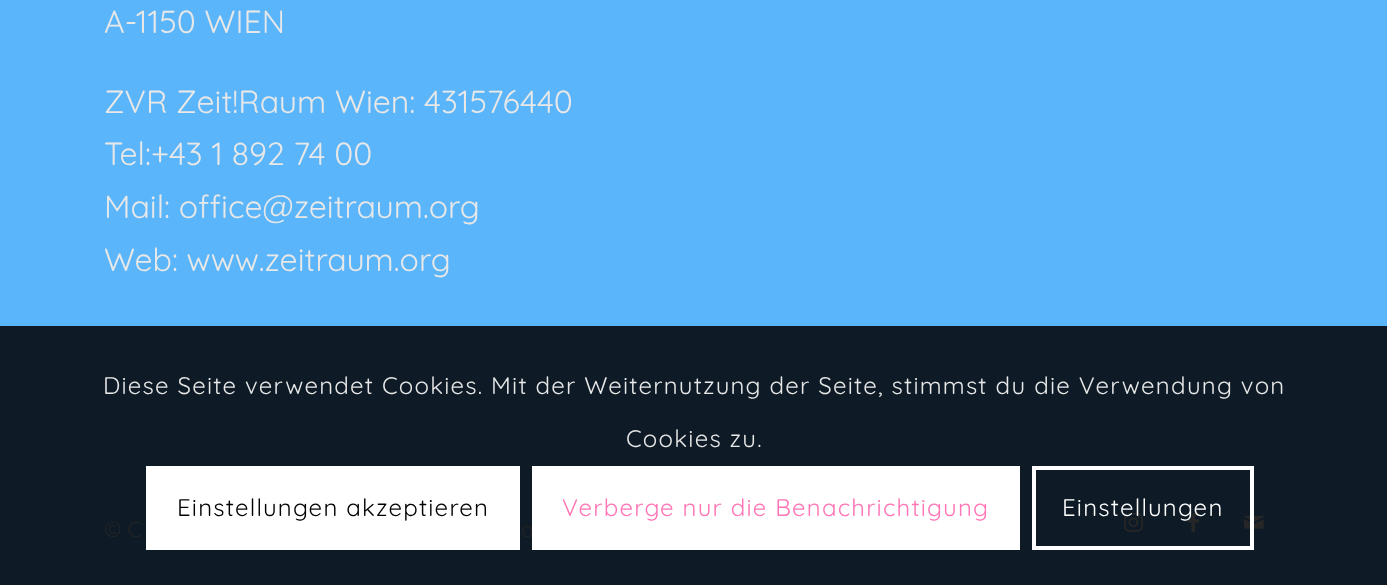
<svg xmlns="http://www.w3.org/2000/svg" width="1387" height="585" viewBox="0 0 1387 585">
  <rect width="100%" height="100%" fill="#5ab5fa"/>
  <path d="M0 326h1387v259H0z" fill="#0e1b26"/>
  <image x="1124" y="512" width="19" height="20" href="img/1.png"/>
  <image x="1188" y="512" width="11" height="21" href="img/2.png"/>
  <image x="1244" y="515" width="20" height="14" href="img/3.png"/>
  <path d="M146 466h374v84H146z" fill="#fff"/>
  <path d="M1034 468h218v80H1034z" fill="none" stroke="#fff" stroke-width="4"/>
  <g font-family="Quicksand" font-size="32" fill="#e8e8e8">
    <text x="104" y="33">A-1150 WIEN</text>
    <text x="104" y="113">ZVR Zeit!Raum Wien: 431576440</text>
    <text x="104" y="165">Tel:+43 1 892 74 00</text>
    <text x="104" y="218">Mail: office@zeitraum.org</text>
    <text x="104" y="271">Web: www.zeitraum.org</text>
  </g>
  <g font-family="Quicksand" font-size="22" fill="#232323">
    <text x="104" y="537">© C</text>
    <text x="521" y="537">a</text>
  </g>
  <g font-family="Quicksand" font-size="24" letter-spacing="1.2" fill="#e8e8e8">
    <text x="103" y="394">Diese Seite verwendet Cookies. Mit der Weiternutzung der Seite, stimmst du die Verwendung von</text>
    <text x="626" y="447">Cookies zu.</text>
  </g>
  <text x="177" y="516" font-family="Quicksand" font-size="24" letter-spacing="1.2" fill="#000">Einstellungen akzeptieren</text>
  <path d="M532 466h488v84H532z" fill="#fff"/>
  <text x="562" y="516" font-family="Quicksand" font-size="24" letter-spacing="1.2" fill="#ff75b5">Verberge nur die Benachrichtigung</text>
  <text x="1062" y="516" font-family="Quicksand" font-size="24" letter-spacing="1.2" fill="#fff">Einstellungen</text>
</svg>
